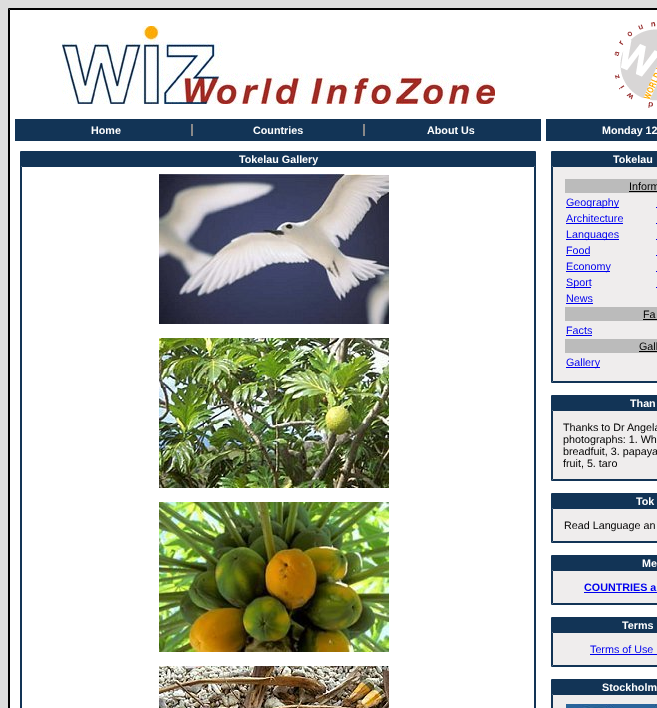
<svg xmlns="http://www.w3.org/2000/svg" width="657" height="708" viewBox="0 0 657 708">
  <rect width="100%" height="100%" fill="#ddd"/>
  <path d="M10 10h647v698H10z" fill="#fff"/>
  <path d="M8.5 8.5h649v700H8.5z" fill="none" stroke="#000"/>
  <path d="M9.5 9.5h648v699H9.5z" fill="none" stroke="#000"/>
  <image x="62" y="26" width="433" height="78" href="img/1.png"/>
  <image x="614" y="22" width="43" height="86" href="img/2.png"/>
  <path d="M15 119h526v22H15z" fill="#123456"/>
  <path d="M191 124h2v12H191z" fill="#888"/>
  <path d="M363 124h2v12H363z" fill="#888"/>
  <path d="M546 119h111v22H546z" fill="#123456"/>
  <path d="M20.5 151.5h515v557H20.5z" fill="none" stroke="#123456"/>
  <path d="M21 152h514v14H21z" fill="#123456"/>
  <path d="M21.5 166.5h513v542H21.5z" fill="none" stroke="#123456"/>
  <image x="159" y="174" width="230" height="150" href="img/3.png"/>
  <image x="159" y="338" width="230" height="150" href="img/4.png"/>
  <image x="159" y="502" width="230" height="150" href="img/5.png"/>
  <image x="159" y="666" width="230" height="42" href="img/6.png"/>
  <path d="M551.5 151.5h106v231H551.5z" fill="none" stroke="#123456"/>
  <path d="M552 152h105v14H552z" fill="#123456"/>
  <path d="M552.5 166.5h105v215H552.5z" fill="#efeded" stroke="#123456"/>
  <path d="M565 179h92v14H565z" fill="#bbb"/>
  <path d="M629 191h28v1H629z" fill="#000"/>
  <path d="M566 207h53v1H566z" fill="#00e"/>
  <path d="M656 207h1v1H656z" fill="#00e"/>
  <path d="M566 223h57v1H566z" fill="#00e"/>
  <path d="M656 223h1v1H656z" fill="#00e"/>
  <path d="M566 239h53v1H566z" fill="#00e"/>
  <path d="M656 239h1v1H656z" fill="#00e"/>
  <path d="M566 255h24v1H566z" fill="#00e"/>
  <path d="M656 255h1v1H656z" fill="#00e"/>
  <path d="M566 271h44v1H566z" fill="#00e"/>
  <path d="M656 271h1v1H656z" fill="#00e"/>
  <path d="M566 287h25v1H566z" fill="#00e"/>
  <path d="M656 287h1v1H656z" fill="#00e"/>
  <path d="M566 303h27v1H566z" fill="#00e"/>
  <path d="M565 307h92v14H565z" fill="#bbb"/>
  <path d="M643 319h14v1H643z" fill="#000"/>
  <path d="M566 335h26v1H566z" fill="#00e"/>
  <path d="M565 339h92v14H565z" fill="#bbb"/>
  <path d="M639 351h18v1H639z" fill="#000"/>
  <path d="M566 367h34v1H566z" fill="#00e"/>
  <path d="M551.5 395.5h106v85H551.5z" fill="none" stroke="#123456"/>
  <path d="M552 396h105v14H552z" fill="#123456"/>
  <path d="M552.5 410.5h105v69H552.5z" fill="#efeded" stroke="#123456"/>
  <path d="M551.5 493.5h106v49H551.5z" fill="none" stroke="#123456"/>
  <path d="M552 494h105v14H552z" fill="#123456"/>
  <path d="M552.5 508.5h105v33H552.5z" fill="#efeded" stroke="#123456"/>
  <path d="M551.5 555.5h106v49H551.5z" fill="none" stroke="#123456"/>
  <path d="M552 556h105v14H552z" fill="#123456"/>
  <path d="M552.5 570.5h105v33H552.5z" fill="#efeded" stroke="#123456"/>
  <path d="M584 592h73v1H584z" fill="#00e"/>
  <path d="M551.5 617.5h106v49H551.5z" fill="none" stroke="#123456"/>
  <path d="M552 618h105v14H552z" fill="#123456"/>
  <path d="M552.5 632.5h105v33H552.5z" fill="#efeded" stroke="#123456"/>
  <path d="M590 654h67v1H590z" fill="#00e"/>
  <path d="M551.5 679.5h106v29H551.5z" fill="none" stroke="#123456"/>
  <path d="M552 680h105v14H552z" fill="#123456"/>
  <path d="M552.5 694.5h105v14H552.5z" fill="#efeded" stroke="#123456"/>
  <image x="566" y="704" width="91" height="4" href="img/7.png"/>
  <g font-family="Liberation Sans" font-size="10.75" font-weight="bold" fill="#fff">
    <text x="91" y="134">Home</text>
    <text x="253" y="134">Countries</text>
    <text x="427" y="134">About Us</text>
    <text x="602" y="134">Monday 12</text>
    <text x="239" y="163">Tokelau Gallery</text>
    <text x="613" y="163">Tokelau</text>
  </g>
  <text x="629" y="190" font-family="Liberation Sans" font-size="10.75" fill="#000">Inform</text>
  <g font-family="Liberation Sans" font-size="10.75" fill="#00e">
    <text x="566" y="206">Geography</text>
    <text x="566" y="222">Architecture</text>
    <text x="566" y="238">Languages</text>
    <text x="566" y="254">Food</text>
    <text x="566" y="270">Economy</text>
    <text x="566" y="286">Sport</text>
    <text x="566" y="302">News</text>
  </g>
  <text x="643" y="318" font-family="Liberation Sans" font-size="10.75" fill="#000">Fa</text>
  <text x="566" y="334" font-family="Liberation Sans" font-size="10.75" fill="#00e">Facts</text>
  <text x="639" y="350" font-family="Liberation Sans" font-size="10.75" fill="#000">Gall</text>
  <text x="566" y="366" font-family="Liberation Sans" font-size="10.75" fill="#00e">Gallery</text>
  <text x="630" y="407" font-family="Liberation Sans" font-size="10.75" font-weight="bold" fill="#fff">Than</text>
  <g font-family="Liberation Sans" font-size="10.75" fill="#000">
    <text x="563" y="431">Thanks to Dr Angela</text>
    <text x="563" y="443">photographs: 1. Wh</text>
    <text x="563" y="455">breadfuit, 3. papaya</text>
    <text x="563" y="467">fruit, 5. taro</text>
  </g>
  <text x="636" y="505" font-family="Liberation Sans" font-size="10.75" font-weight="bold" fill="#fff">Tok</text>
  <text x="564" y="529" font-family="Liberation Sans" font-size="10.75" fill="#000">Read Language an</text>
  <text x="642" y="567" font-family="Liberation Sans" font-size="10.75" font-weight="bold" fill="#fff">Me</text>
  <text x="584" y="591" font-family="Liberation Sans" font-size="10.75" font-weight="bold" fill="#00e">COUNTRIES a</text>
  <text x="622" y="629" font-family="Liberation Sans" font-size="10.75" font-weight="bold" fill="#fff">Terms</text>
  <text x="590" y="653" font-family="Liberation Sans" font-size="10.75" fill="#00e">Terms of Use</text>
  <text x="602" y="691" font-family="Liberation Sans" font-size="10.75" font-weight="bold" fill="#fff">Stockholm</text>
</svg>
